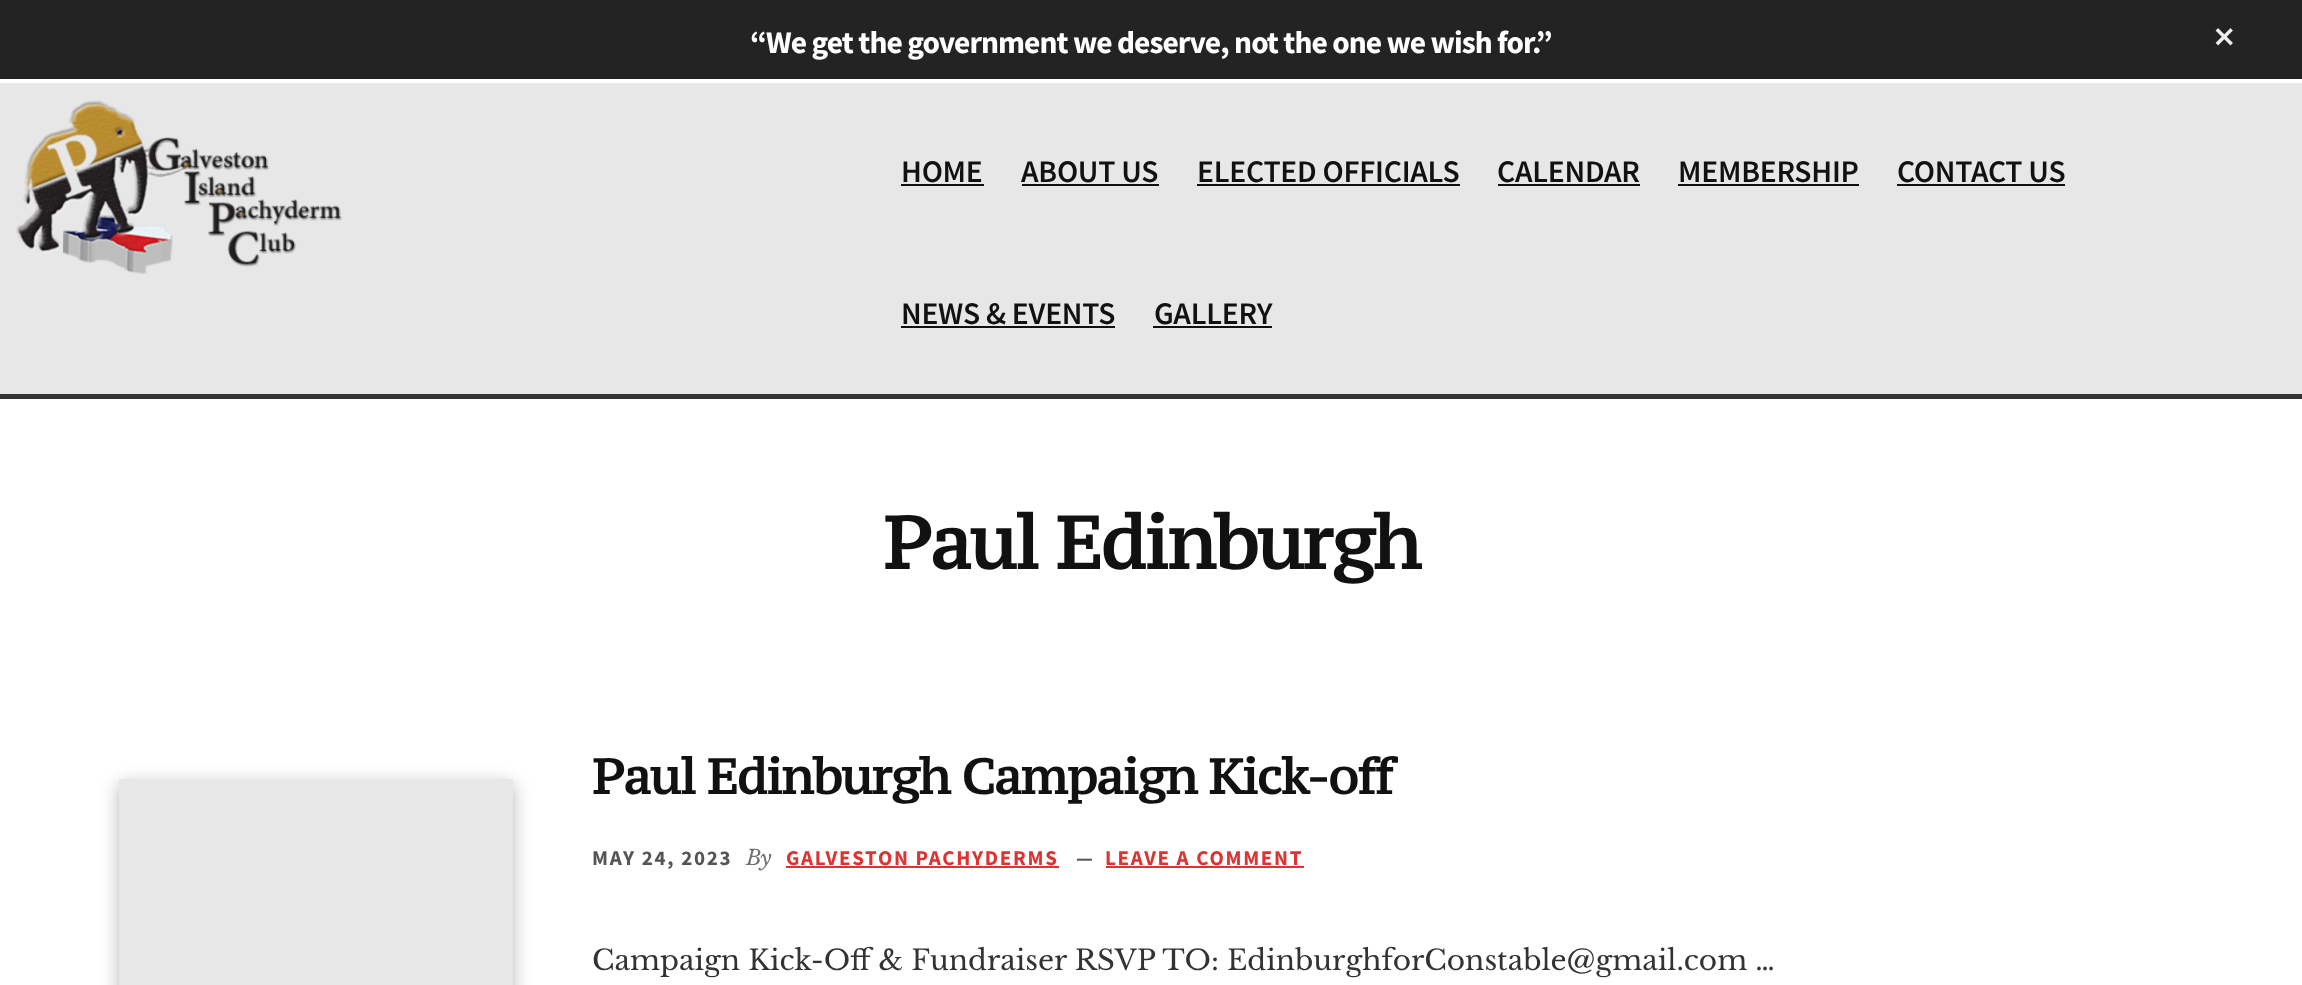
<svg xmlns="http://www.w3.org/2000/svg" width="2302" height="985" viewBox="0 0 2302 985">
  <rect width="100%" height="100%" fill="#fff"/>
  <path d="M0 0h2302v79H0z" fill="#232323"/>
  <image x="2215" y="28" width="18" height="18" href="img/1.png"/>
  <path d="M0 83h2302v311H0z" fill="#e7e7e7"/>
  <path d="M0 394h2302v5H0z" fill="#333"/>
  <image x="16" y="100" width="326" height="174" href="img/2.png"/>
  <path d="M901 184h83v2H901z" fill="#111"/>
  <path d="M1022 184h137v2H1022z" fill="#111"/>
  <path d="M1197 184h263v2H1197z" fill="#111"/>
  <path d="M1498 184h142v2H1498z" fill="#111"/>
  <path d="M1678 184h181v2H1678z" fill="#111"/>
  <path d="M1897 184h168v2H1897z" fill="#111"/>
  <path d="M901 326h214v2H901z" fill="#111"/>
  <path d="M1153 326h119v2H1153z" fill="#111"/>
  <path d="M119 784h394v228H119z" fill="#00000047" filter="blur(9px)"/>
  <path d="M119 779h394v206H119z" fill="#e7e7e7"/>
  <path d="M786 866h273v2H786z" fill="#d33"/>
  <path d="M1106 866h198v2H1106z" fill="#d33"/>
  <text x="750" y="53" font-family="Source Sans Pro" font-size="31.5" font-weight="bold" letter-spacing="-0.95" fill="#fff">“We get the government we deserve, not the one we wish for.”</text>
  <g font-family="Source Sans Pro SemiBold" font-size="31.5" font-weight="600" letter-spacing="-0.25" fill="#111">
    <text x="901" y="182">HOME</text>
    <text x="1021" y="182">ABOUT US</text>
    <text x="1197" y="182">ELECTED OFFICIALS</text>
    <text x="1497" y="182">CALENDAR</text>
    <text x="1678" y="182">MEMBERSHIP</text>
    <text x="1897" y="182">CONTACT US</text>
    <text x="901" y="324">NEWS &amp; EVENTS</text>
    <text x="1154" y="324">GALLERY</text>
  </g>
  <text x="883" y="569" font-family="PT Serif Caption" font-size="73.5" font-weight="bold" letter-spacing="-2.25" fill="#111">Paul Edinburgh</text>
  <text x="592" y="794" font-family="PT Serif Caption" font-size="49" font-weight="bold" letter-spacing="-1.5" fill="#111">Paul Edinburgh Campaign Kick-off</text>
  <text x="592" y="865" font-family="Source Sans Pro" font-size="21" font-weight="bold" letter-spacing="1.7" fill="#555">MAY 24, 2023</text>
  <text x="746" y="865" font-family="Libre Baskerville" font-size="21" font-style="italic" fill="#707070">By</text>
  <text x="786" y="865" font-family="Source Sans Pro" font-size="21" font-weight="bold" letter-spacing="1.7" fill="#d33">GALVESTON PACHYDERMS</text>
  <text x="1076" y="865" font-family="Source Sans Pro" font-size="21" font-weight="bold" letter-spacing="1.7" fill="#555">—</text>
  <text x="1105" y="865" font-family="Source Sans Pro" font-size="21" font-weight="bold" letter-spacing="1.7" fill="#d33">LEAVE A COMMENT</text>
  <text x="592" y="970" font-family="Libre Baskerville" font-size="28" fill="#333">Campaign Kick-Off &amp; Fundraiser RSVP TO: EdinburghforConstable@gmail.com …</text>
</svg>
